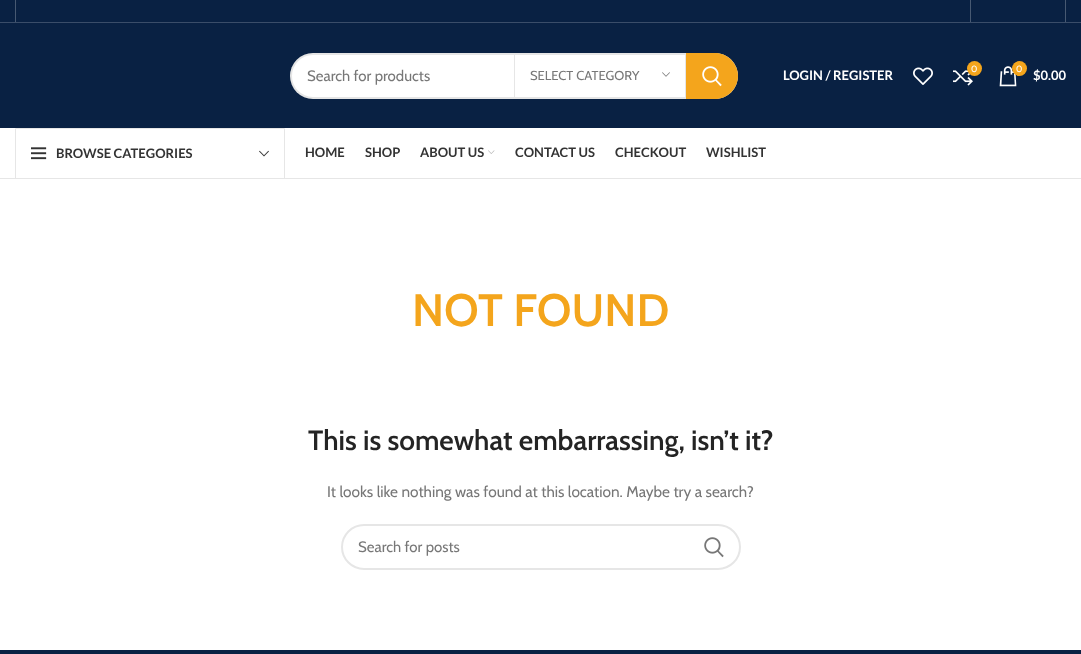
<svg xmlns="http://www.w3.org/2000/svg" width="1081" height="654" viewBox="0 0 1081 654">
  <rect width="100%" height="100%" fill="#fff"/>
  <path d="M0 0h1081v22H0z" fill="#092143"/>
  <path d="M0 22h1081v1H0z" fill="#3a4d69"/>
  <path d="M15 0h1v22H15z" fill="#475972"/>
  <path d="M970 0h1v22H970z" fill="#475972"/>
  <path d="M1065 0h1v22H1065z" fill="#475972"/>
  <path d="M0 23h1081v105H0z" fill="#092143"/>
  <rect x="290" y="53" width="448" height="46" rx="23" fill="#fff"/>
  <rect x="291" y="54" width="446" height="44" rx="22" fill="none" stroke="#0000001a" stroke-width="2"/>
  <path d="M685 55h1v42H685z" fill="#e6e6e6"/>
  <path d="M514 55h1v42H514z" fill="#e6e6e6"/>
  <image x="662" y="72" width="8" height="5" href="img/1.png"/>
  <path d="M686 53H715C727.5 53 738 63.5 738 76C738 88.5 727.5 99 715 99H686Z" fill="#f4a51c"/>
  <image x="702" y="66" width="20" height="21" href="img/2.png"/>
  <image x="913" y="67" width="20" height="18" href="img/3.png"/>
  <image x="953" y="67" width="20" height="19" href="img/4.png"/>
  <circle cx="974.5" cy="68.5" r="7.5" fill="#f4a51c"/>
  <image x="999" y="66" width="18" height="21" href="img/5.png"/>
  <circle cx="1019.5" cy="68.5" r="7.5" fill="#f4a51c"/>
  <path d="M0 178h1081v1H0z" fill="#e6e6e6"/>
  <path d="M15.5 128.5h269v50H15.5z" fill="none" stroke="#e6e6e6"/>
  <image x="31" y="147" width="16" height="13" href="img/6.png"/>
  <image x="259" y="150" width="10" height="7" href="img/7.png"/>
  <image x="488" y="150" width="7" height="4" href="img/8.png"/>
  <rect x="342" y="525" width="398" height="44" rx="22" fill="none" stroke="#e6e6e6" stroke-width="2"/>
  <image x="704" y="537" width="20" height="21" href="img/9.png"/>
  <path d="M0 650h1081v4H0z" fill="#092143"/>
  <text x="307" y="81" font-family="Cabin" font-size="15" fill="#777">Search for products</text>
  <text x="530" y="80" font-family="Cabin" font-size="13" fill="#777">SELECT CATEGORY</text>
  <text x="783" y="80" font-family="Lato" font-size="13" font-weight="bold" fill="#fff">LOGIN / REGISTER</text>
  <g font-family="Cabin" font-size="9" fill="#fff">
    <text x="971" y="72">0</text>
    <text x="1016" y="72">0</text>
  </g>
  <text x="1033" y="80" font-family="Lato" font-size="13" font-weight="bold" fill="#fff">$0.00</text>
  <g font-family="Lato" font-size="13" font-weight="bold" fill="#333">
    <text x="56" y="158">BROWSE CATEGORIES</text>
    <text x="305" y="157">HOME</text>
    <text x="365" y="157">SHOP</text>
    <text x="420" y="157">ABOUT US</text>
    <text x="515" y="157">CONTACT US</text>
    <text x="615" y="157">CHECKOUT</text>
    <text x="706" y="157">WISHLIST</text>
  </g>
  <text x="412" y="326" font-family="Cabin" font-size="45.5" font-weight="600" fill="#f4a51c">NOT FOUND</text>
  <text x="308" y="450" font-family="Cabin" font-size="28" font-weight="600" fill="#242424">This is somewhat embarrassing, isn’t it?</text>
  <text x="327" y="497" font-family="Cabin" font-size="15.4" fill="#777">It looks like nothing was found at this location. Maybe try a search?</text>
  <text x="358" y="552" font-family="Cabin" font-size="15" fill="#777">Search for posts</text>
</svg>
